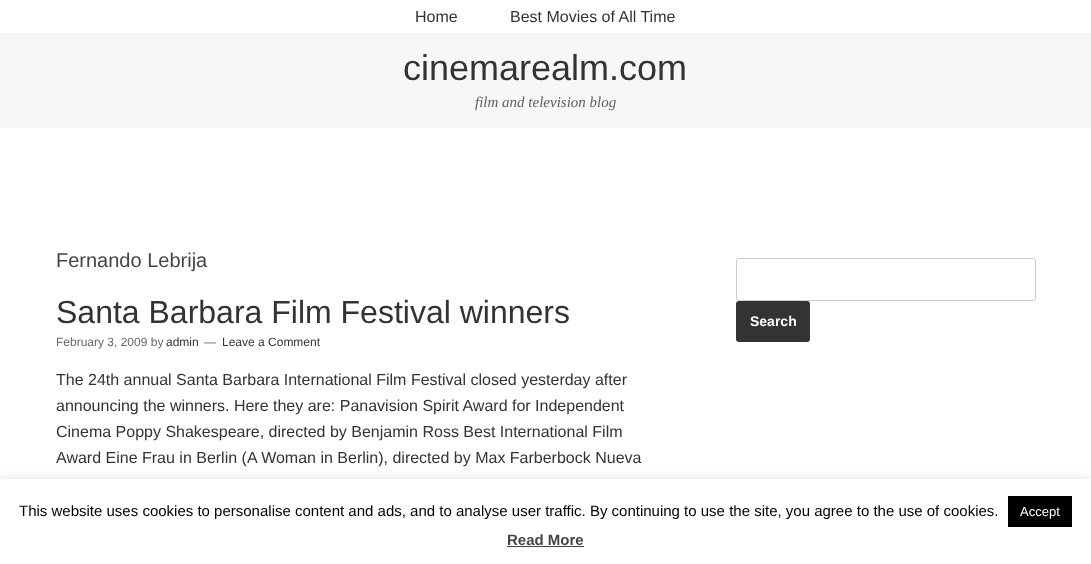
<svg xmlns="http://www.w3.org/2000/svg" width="1091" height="564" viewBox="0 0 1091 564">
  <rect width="100%" height="100%" fill="#fff"/>
  <path d="M0 33h1091v95H0z" fill="#f7f7f7"/>
  <rect x="736.5" y="258.5" width="299" height="42" rx="2.5" fill="none" stroke="#ccc"/>
  <rect x="736" y="301" width="74" height="41" rx="3" fill="#333"/>
  <path d="M0 478h1091v85H0z" fill="#acabab4d" filter="blur(5px)"/>
  <path d="M0 479h1091v85H0z" fill="#fff"/>
  <path d="M1008 496h64v31H1008z" fill="#000"/>
  <path d="M507 546h77v1H507z" fill="#444"/>
  <g font-family="Liberation Sans" font-size="16" fill="#333">
    <text x="415" y="22">Home</text>
    <text x="510" y="22">Best Movies of All Time</text>
  </g>
  <text x="403" y="80" font-family="Liberation Sans" font-size="36" fill="#333">cinemarealm.com</text>
  <text x="475" y="107" font-family="Liberation Serif" font-size="15" font-style="italic" fill="#606060">film and television blog</text>
  <text x="56" y="267" font-family="Liberation Sans" font-size="20" fill="#444">Fernando Lebrija</text>
  <text x="56" y="323" font-family="Liberation Sans" font-size="32" fill="#333">Santa Barbara Film Festival winners</text>
  <text x="56" y="346" font-family="Liberation Sans" font-size="12" fill="#666">February 3, 2009 by</text>
  <text x="166" y="346" font-family="Liberation Sans" font-size="12" fill="#333">admin</text>
  <text x="204" y="346" font-family="Liberation Sans" font-size="12" fill="#666">—</text>
  <text x="222" y="346" font-family="Liberation Sans" font-size="12" fill="#333">Leave a Comment</text>
  <g font-family="Liberation Sans" font-size="16" fill="#333">
    <text x="56" y="385">The 24th annual Santa Barbara International Film Festival closed yesterday after</text>
    <text x="56" y="411">announcing the winners. Here they are: Panavision Spirit Award for Independent</text>
    <text x="56" y="437">Cinema Poppy Shakespeare, directed by Benjamin Ross Best International Film</text>
    <text x="56" y="463">Award Eine Frau in Berlin (A Woman in Berlin), directed by Max Farberbock Nueva</text>
  </g>
  <text x="750" y="326" font-family="Liberation Sans" font-size="14" font-weight="bold" fill="#fff">Search</text>
  <text x="19" y="516" font-family="Liberation Sans" font-size="15" fill="#000">This website uses cookies to personalise content and ads, and to analyse user traffic. By continuing to use the site, you agree to the use of cookies.</text>
  <text x="1020" y="516" font-family="Liberation Sans" font-size="13" fill="#fff">Accept</text>
  <text x="507" y="545" font-family="Liberation Sans" font-size="15" font-weight="bold" fill="#444">Read More</text>
</svg>
